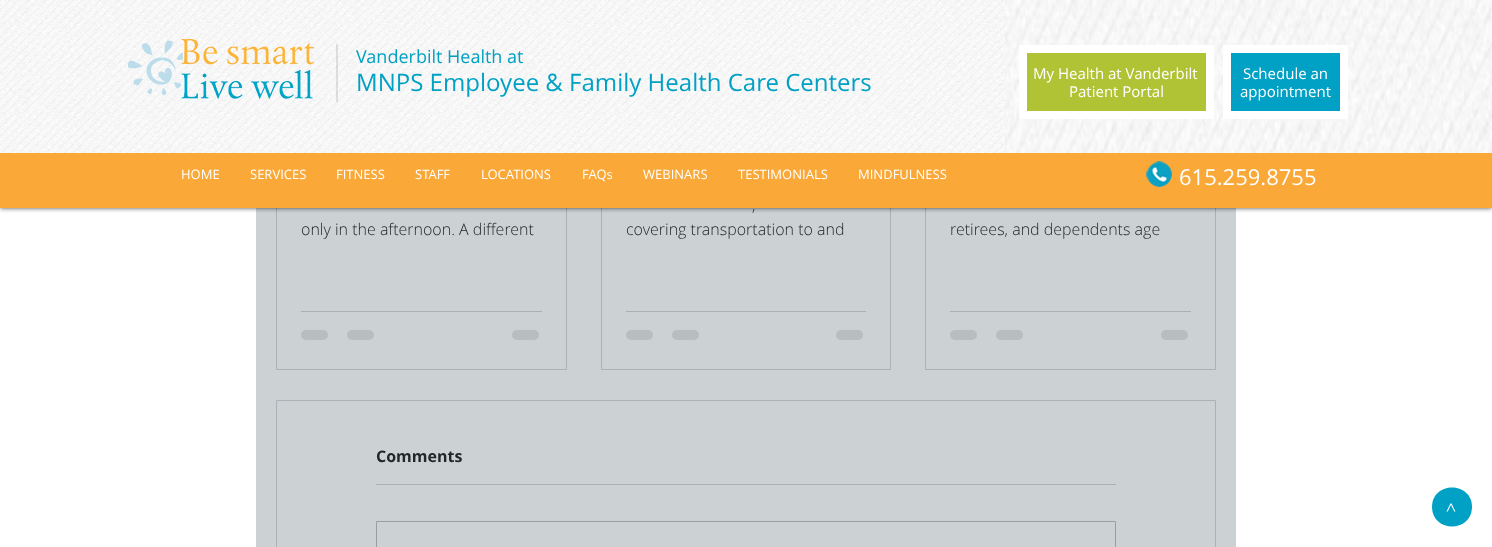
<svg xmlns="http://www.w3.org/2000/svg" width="1492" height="547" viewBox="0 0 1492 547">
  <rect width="100%" height="100%" fill="#fff"/>
  <path d="M256 208h980v339H256z" fill="#ccd1d4"/>
  <path d="M276.5 56.5h290v313H276.5z" fill="none" stroke="#abb1b4"/>
  <path d="M601.5 56.5h289v313H601.5z" fill="none" stroke="#abb1b4"/>
  <path d="M925.5 56.5h290v313H925.5z" fill="none" stroke="#abb1b4"/>
  <path d="M0 0h1492v208H0z" fill="#000000b3" filter="blur(2.5px)"/>
  <path d="M0 153h1492v55H0z" fill="#faa838"/>
  <image x="0" y="0" width="1005" height="153" href="img/2.png"/>
  <image x="128" y="39" width="186" height="60" href="img/1.png"/>
  <path d="M336 44h2v58H336z" fill="#747a7d33"/>
  <image x="1005" y="0" width="487" height="153" href="img/3.png"/>
  <path d="M1023 49h187v66H1023z" fill="#b0c335" stroke="#fff" stroke-width="8"/>
  <path d="M1227 49h117v66H1227z" fill="#00a1c4" stroke="#fff" stroke-width="8"/>
  <image x="1146" y="161" width="26" height="26" href="img/4.png"/>
  <path d="M301 311h241v1H301z" fill="#aaafb2"/>
  <rect x="301" y="330" width="27" height="10" rx="5" fill="#b8bdbf"/>
  <rect x="347" y="330" width="27" height="10" rx="5" fill="#b8bdbf"/>
  <rect x="512" y="330" width="27" height="10" rx="5" fill="#b8bdbf"/>
  <path d="M626 311h240v1H626z" fill="#aaafb2"/>
  <rect x="626" y="330" width="27" height="10" rx="5" fill="#b8bdbf"/>
  <rect x="672" y="330" width="27" height="10" rx="5" fill="#b8bdbf"/>
  <rect x="836" y="330" width="27" height="10" rx="5" fill="#b8bdbf"/>
  <path d="M950 311h241v1H950z" fill="#aaafb2"/>
  <rect x="950" y="330" width="27" height="10" rx="5" fill="#b8bdbf"/>
  <rect x="996" y="330" width="27" height="10" rx="5" fill="#b8bdbf"/>
  <rect x="1161" y="330" width="27" height="10" rx="5" fill="#b8bdbf"/>
  <path d="M276.5 400.5h939v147H276.5z" fill="none" stroke="#abb1b4"/>
  <path d="M376 484h740v1H376z" fill="#aaafb2"/>
  <path d="M376.5 521.5h739v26H376.5z" fill="none" stroke="#999ea1"/>
  <path d="M1432 507C1432 481 1472 481 1472 507C1472 533 1432 533 1432 507Z" fill="#00a1c4"/>
  <text x="356" y="63" font-family="Open Sans" font-size="18" fill="#00a1c4">Vanderbilt Health at</text>
  <text x="356" y="91" font-family="Open Sans" font-size="24" fill="#00a1c4">MNPS Employee &amp; Family Health Care Centers</text>
  <g font-family="Open Sans" font-size="15" fill="#fff">
    <text x="1033" y="79">My Health at Vanderbilt</text>
    <text x="1069" y="97">Patient Portal</text>
    <text x="1243" y="79">Schedule an</text>
    <text x="1240" y="97">appointment</text>
  </g>
  <g font-family="Open Sans" font-size="13" fill="#fff">
    <text x="181" y="179">HOME</text>
    <text x="250" y="179">SERVICES</text>
    <text x="336" y="179">FITNESS</text>
    <text x="415" y="179">STAFF</text>
    <text x="481" y="179">LOCATIONS</text>
    <text x="582" y="179">FAQs</text>
    <text x="643" y="179">WEBINARS</text>
    <text x="738" y="179">TESTIMONIALS</text>
    <text x="858" y="179">MINDFULNESS</text>
  </g>
  <text x="1179" y="185" font-family="Open Sans" font-size="22" fill="#fff">615.259.8755</text>
  <g font-family="Open Sans" font-size="16" font-weight="300" fill="#232729">
    <text x="301" y="235">only in the afternoon. A different</text>
    <text x="752" y="211">,</text>
    <text x="626" y="235">covering transportation to and</text>
    <text x="950" y="235">retirees, and dependents age</text>
  </g>
  <text x="376" y="462" font-family="Open Sans" font-size="16" font-weight="bold" fill="#232729">Comments</text>
  <text x="1457" y="512" transform="rotate(-90 1457 512)" font-family="'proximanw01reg'" font-size="18" fill="#fff">&gt;</text>
</svg>
